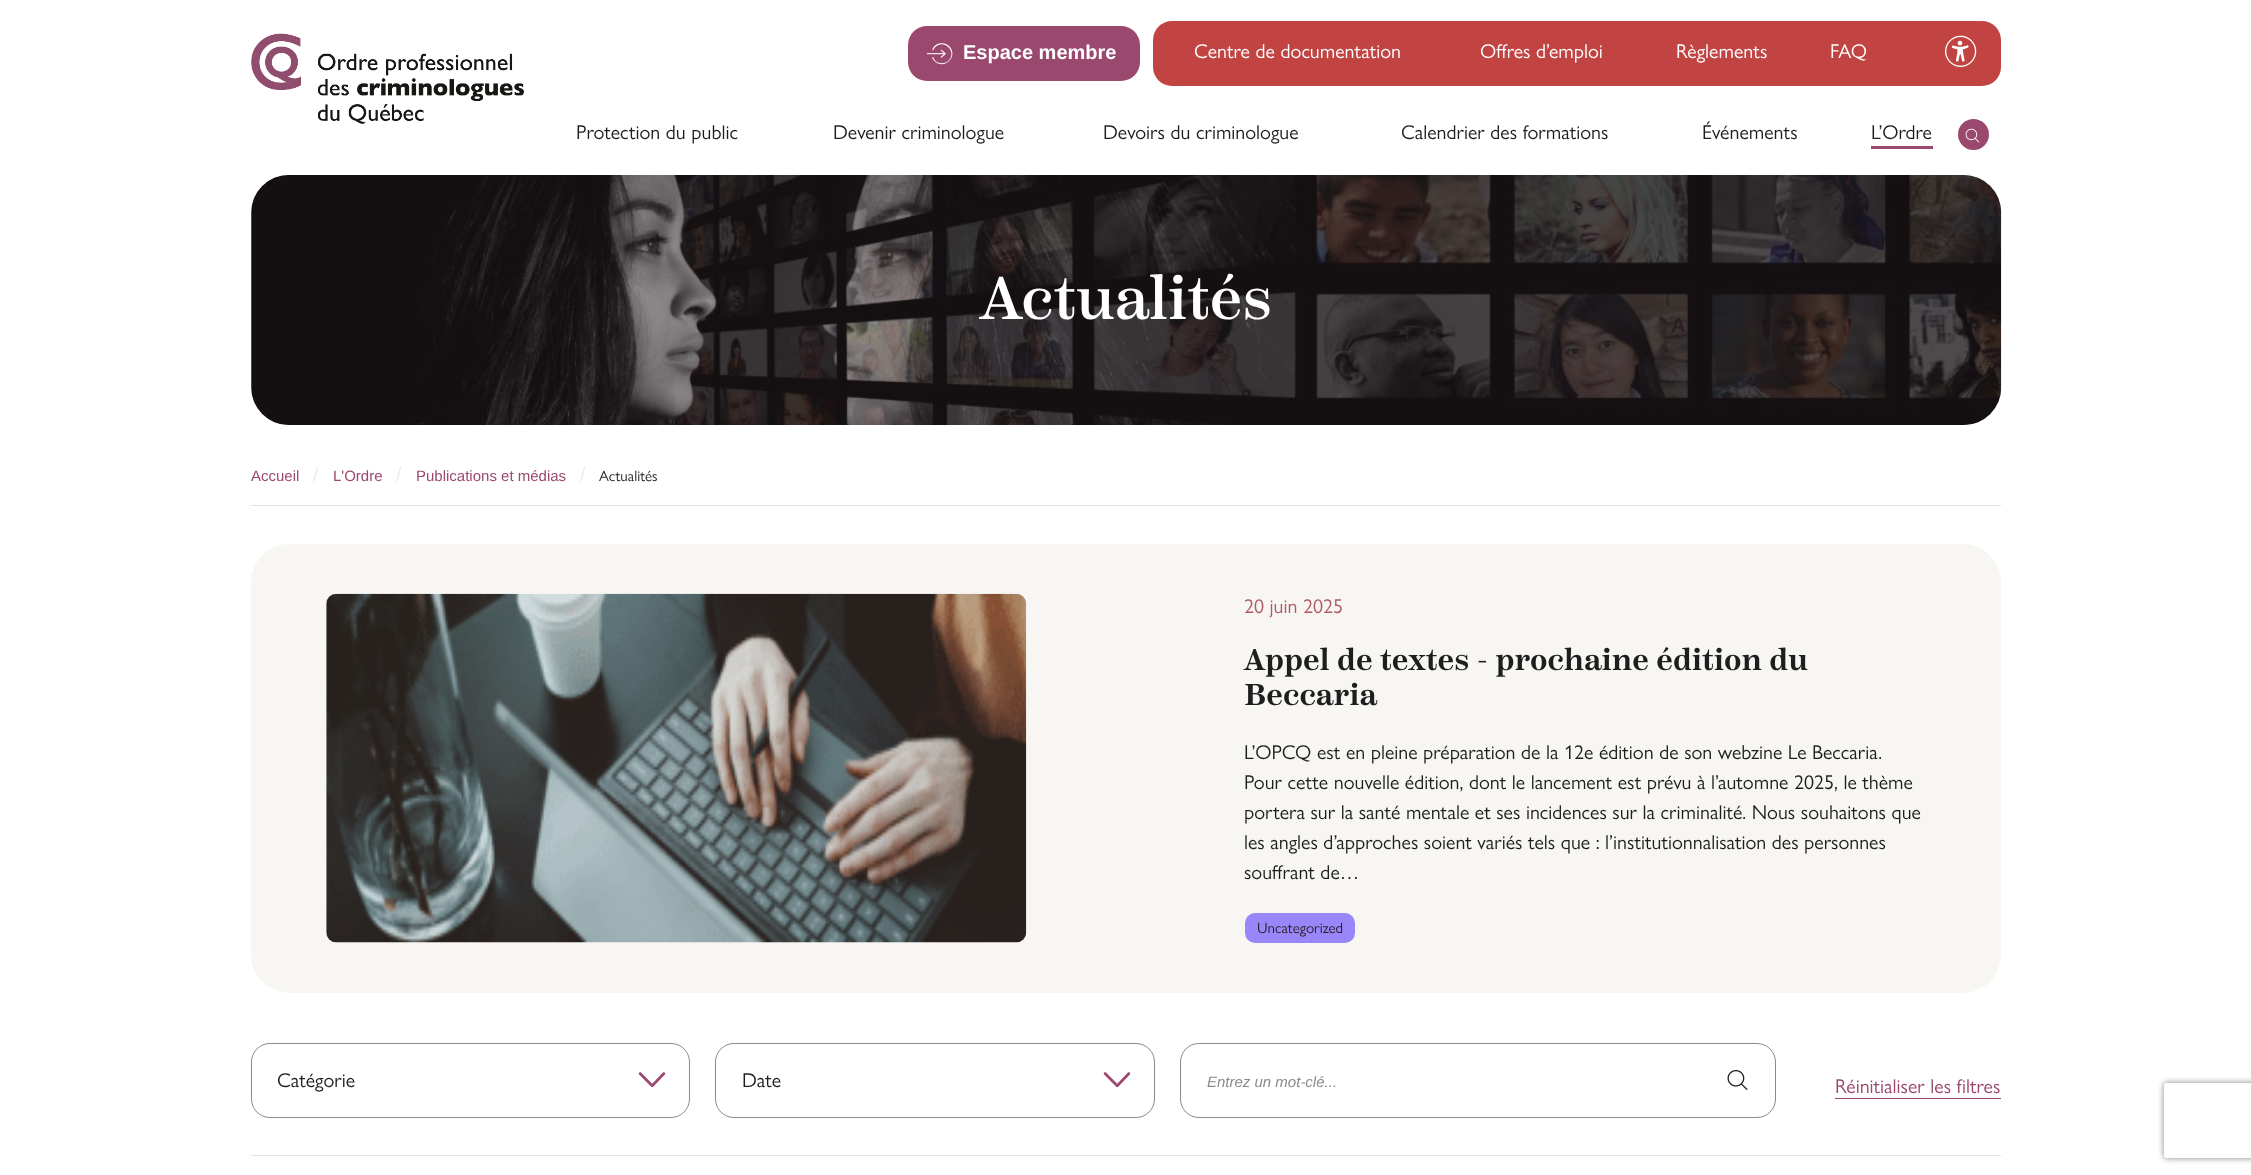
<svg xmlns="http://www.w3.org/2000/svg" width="2251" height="1175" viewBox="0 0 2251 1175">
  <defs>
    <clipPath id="clip1"><path d="M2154 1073H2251V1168H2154ZM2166.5 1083H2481.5C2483 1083 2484 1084 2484 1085.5V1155.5C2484 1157 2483 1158 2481.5 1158H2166.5C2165 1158 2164 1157 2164 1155.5V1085.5C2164 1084 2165 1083 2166.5 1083Z" clip-rule="evenodd"/></clipPath>
  </defs>
  <rect width="100%" height="100%" fill="#fff"/>
  <image x="251" y="33" width="273" height="91" href="img/1.png"/>
  <rect x="908" y="26" width="232" height="55" rx="19" fill="#9b486e"/>
  <image x="926" y="43" width="27" height="22" href="img/2.png"/>
  <rect x="1153" y="21" width="848" height="65" rx="19" fill="#c14342"/>
  <image x="1945" y="35" width="32" height="32" href="img/3.png"/>
  <path d="M1871 146h62v3H1871z" fill="#9b486e"/>
  <circle cx="1973.5" cy="134.5" r="15.5" fill="#9b486e"/>
  <image x="1965" y="128" width="15" height="15" href="img/4.png"/>
  <image x="251" y="175" width="1751" height="250" href="img/5.png"/>
  <rect x="251" y="175" width="1750" height="250" rx="38" fill="#291e2473"/>
  <path d="M251 505h1750v1H251z" fill="#e4e4e4"/>
  <rect x="251" y="544" width="1750" height="449" rx="38" fill="#f7f6f3"/>
  <image x="326" y="593" width="701" height="350" href="img/6.png"/>
  <rect x="1245" y="913" width="110" height="30" rx="10" fill="#9986f8"/>
  <path d="M251 1155h1750v1H251z" fill="#e4e4e4"/>
  <image x="638" y="1072" width="28" height="16" href="img/7.png"/>
  <rect x="251.5" y="1043.5" width="438" height="74" rx="18.5" fill="none" stroke="#8b8b8b"/>
  <image x="1103" y="1072" width="28" height="16" href="img/7.png"/>
  <rect x="715.5" y="1043.5" width="439" height="74" rx="18.5" fill="none" stroke="#8b8b8b"/>
  <rect x="1180.5" y="1043.5" width="595" height="74" rx="18.5" fill="none" stroke="#8b8b8b"/>
  <image x="1727" y="1070" width="21" height="20" href="img/8.png"/>
  <path d="M1835 1098h166v1H1835z" fill="#9b486e"/>
  <g clip-path="url(#clip1)">
    <rect x="2164" y="1083" width="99" height="75" rx="2.5" fill="#808080" filter="blur(3px)"/>
  </g>
  <text x="963" y="59" font-family="Liberation Sans" font-size="20" font-weight="bold" fill="#fff">Espace membre</text>
  <g font-family="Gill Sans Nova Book" font-size="20" fill="#fff">
    <text x="1194" y="58">Centre de documentation</text>
    <text x="1480" y="58">Offres d’emploi</text>
    <text x="1676" y="58">Règlements</text>
    <text x="1830" y="58">FAQ</text>
  </g>
  <g font-family="Gill Sans Nova Book" font-size="20" fill="#1e1e1e">
    <text x="576" y="139">Protection du public</text>
    <text x="833" y="139">Devenir criminologue</text>
    <text x="1103" y="139">Devoirs du criminologue</text>
    <text x="1401" y="139">Calendrier des formations</text>
    <text x="1702" y="139">Événements</text>
    <text x="1871" y="139">L’Ordre</text>
  </g>
  <text x="1671" y="332" font-family="Liberation Sans" font-size="20" font-weight="bold" fill="#291e24">A</text>
  <text x="980" y="319" font-family="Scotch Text" font-size="60" font-weight="500" fill="#fff">Actualités</text>
  <text x="251" y="481" font-family="Liberation Sans" font-size="15" fill="#9b486e">Accueil</text>
  <text x="313" y="481" font-family="Gill Sans Nova Book" font-size="20" fill="#e5e5e5">/</text>
  <text x="333" y="481" font-family="Liberation Sans" font-size="15" fill="#9b486e">L'Ordre</text>
  <text x="396" y="481" font-family="Gill Sans Nova Book" font-size="20" fill="#e5e5e5">/</text>
  <text x="416" y="481" font-family="Liberation Sans" font-size="15" fill="#9b486e">Publications et médias</text>
  <text x="580" y="481" font-family="Gill Sans Nova Book" font-size="20" fill="#e5e5e5">/</text>
  <text x="599" y="481" font-family="Gill Sans Nova Book" font-size="15" fill="#1e1e1e">Actualités</text>
  <text x="1244" y="613" font-family="Gill Sans Nova Book" font-size="20" fill="#b05a67">20 juin 2025</text>
  <g font-family="Scotch Text" font-size="30" font-weight="600" fill="#1e1e1e">
    <text x="1244" y="670">Appel de textes - prochaine édition du</text>
    <text x="1244" y="705">Beccaria</text>
  </g>
  <g font-family="Gill Sans Nova Book" font-size="20" fill="#1e1e1e">
    <text x="1244" y="759">L’OPCQ est en pleine préparation de la 12e édition de son webzine Le Beccaria.</text>
    <text x="1244" y="789">Pour cette nouvelle édition, dont le lancement est prévu à l’automne 2025, le thème</text>
    <text x="1244" y="819">portera sur la santé mentale et ses incidences sur la criminalité. Nous souhaitons que</text>
    <text x="1244" y="849">les angles d’approches soient variés tels que : l’institutionnalisation des personnes</text>
    <text x="1244" y="879">souffrant de…</text>
  </g>
  <text x="1257" y="933" font-family="Gill Sans Nova Book" font-size="15" fill="#291e24">Uncategorized</text>
  <g font-family="Gill Sans Nova Book" font-size="20" fill="#1e1e1e">
    <text x="277" y="1087">Catégorie</text>
    <text x="742" y="1087">Date</text>
  </g>
  <text x="1207" y="1087" font-family="Liberation Sans" font-size="15" font-style="italic" fill="#8b8b8b">Entrez un mot-clé...</text>
  <text x="1835" y="1093" font-family="Gill Sans Nova Book" font-size="20" fill="#9b486e">Réinitialiser les filtres</text>
</svg>
